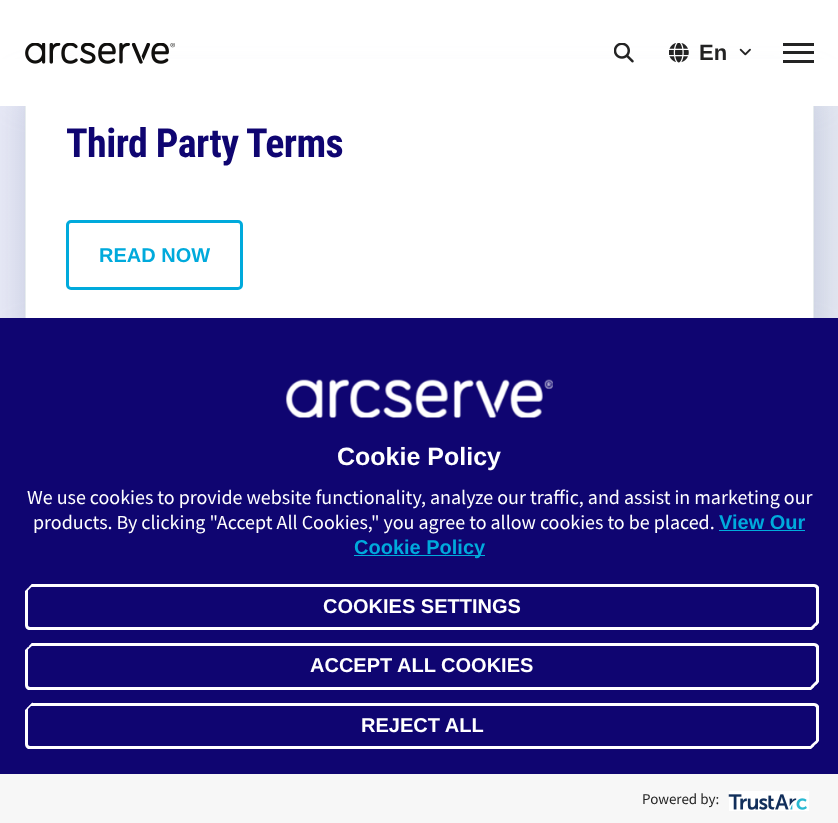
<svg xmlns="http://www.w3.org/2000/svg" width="838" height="823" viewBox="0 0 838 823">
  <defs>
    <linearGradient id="g1" gradientUnits="userSpaceOnUse" x1="0" y1="-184" x2="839" y2="-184"><stop offset="0" stop-color="#e8eaf7"/><stop offset="0.25" stop-color="#ebeefb"/><stop offset="0.5" stop-color="#e4e8f0"/><stop offset="0.75" stop-color="#dde0f1"/><stop offset="1" stop-color="#e4e8f2"/></linearGradient>
  </defs>
  <rect width="100%" height="100%" fill="#fff"/>
  <path d="M0 106h838v212H0z" fill="url(#g1)"/>
  <rect x="25" y="90" width="789" height="254" rx="8" fill="#9ca3c280" filter="blur(19px)"/>
  <path d="M26 106h787v212H26z" fill="#fff"/>
  <path d="M25.5 78.5h788v252H25.5z" fill="none" stroke="#e7ecee"/>
  <path d="M0 59h838v47H0z" fill="#fff"/>
  <image x="25" y="43" width="150" height="21" href="img/1.png"/>
  <image x="614" y="43" width="20" height="20" href="img/2.png"/>
  <image x="669" y="43" width="20" height="20" href="img/3.png"/>
  <image x="739" y="48" width="12" height="8" href="img/4.png"/>
  <path d="M783 51h31v3H783z" fill="#232323"/>
  <path d="M783 43h31v3H783z" fill="#232323"/>
  <path d="M783 60h31v3H783z" fill="#232323"/>
  <rect x="67.5" y="221.5" width="174" height="67" rx="3.5" fill="none" stroke="#00aadc" stroke-width="3"/>
  <path d="M0 318h838v456H0z" fill="#0f0571"/>
  <image x="285" y="379" width="268" height="39" href="img/5.png"/>
  <path d="M719 530h86v1H719z" fill="#00addc"/>
  <path d="M354 555h131v1H354z" fill="#00addc"/>
  <path d="M30 587H814C815 587 816 588 816 589V626L819 623V587C818 585 816 584 814 584H32L25 591V625C25 628 27 630 30 630H812L815 627H30C29 627 28 626 28 625V589C28 588 29 587 30 587Z" fill="#fff"/>
  <path d="M32 584L33.5 585L28 590.5L27 589.5Z" fill="#fff"/>
  <path d="M810.5 627.5L816 622L818 624L812.5 629Z" fill="#fff"/>
  <path d="M25 650V685C25 687 26 689 28 690H811L814 687H30C29 687 28 686 28 685V647ZM30 646H814C815 646 816 647 816 648V685L819 682V646C818 644 816 643 814 643H32L29 646Z" fill="#fff" fill-rule="evenodd"/>
  <path d="M32 643L33.5 644.5L28 649.5L27 648.5Z" fill="#fff"/>
  <path d="M810.5 686.5L816 681L818 683L812.5 688.5Z" fill="#fff"/>
  <path d="M30 706H814C815 706 816 707 816 708V744L819 741V706C818 704 816 703 814 703H32L25 710V744C25 746 26 748 28 749H811L814 746H30C29 746 28 745 28 744V708C28 707 29 706 30 706Z" fill="#fff"/>
  <path d="M32.5 702.5L33.5 703.5L28 709L27 708Z" fill="#fff"/>
  <path d="M810.5 745.5L816 740.5L818 742L812.5 747.5Z" fill="#fff"/>
  <path d="M0 774h838v49H0z" fill="#f7f7f7"/>
  <image x="728" y="791" width="81" height="20" href="img/6.png"/>
  <text x="699" y="60" font-family="Liberation Sans" font-size="22" font-weight="bold" fill="#232323">En</text>
  <text x="66" y="157" font-family="Roboto Condensed" font-size="40" font-weight="bold" letter-spacing="-0.6" fill="#0f0571">Third Party Terms</text>
  <text x="99" y="262" font-family="Liberation Sans" font-size="20" font-weight="bold" fill="#00aadc">READ NOW</text>
  <text x="337" y="465" font-family="Liberation Sans" font-size="25" font-weight="bold" fill="#fff">Cookie Policy</text>
  <g font-family="Source Sans Pro" font-size="20" fill="#fff">
    <text x="27" y="504">We use cookies to provide website functionality, analyze our traffic, and assist in marketing our</text>
    <text x="33" y="529">products. By clicking "Accept All Cookies," you agree to allow cookies to be placed.</text>
  </g>
  <g font-family="Liberation Sans" font-size="20" font-weight="bold" fill="#00aadc">
    <text x="719" y="529">View Our</text>
    <text x="354" y="554">Cookie Policy</text>
  </g>
  <g font-family="Liberation Sans" font-size="20" font-weight="bold" fill="#fff">
    <text x="323" y="613">COOKIES SETTINGS</text>
    <text x="310" y="672">ACCEPT ALL COOKIES</text>
    <text x="361" y="732">REJECT ALL</text>
  </g>
  <text x="642" y="804" font-family="Source Sans Pro" font-size="15" fill="#232323">Powered by:</text>
</svg>
